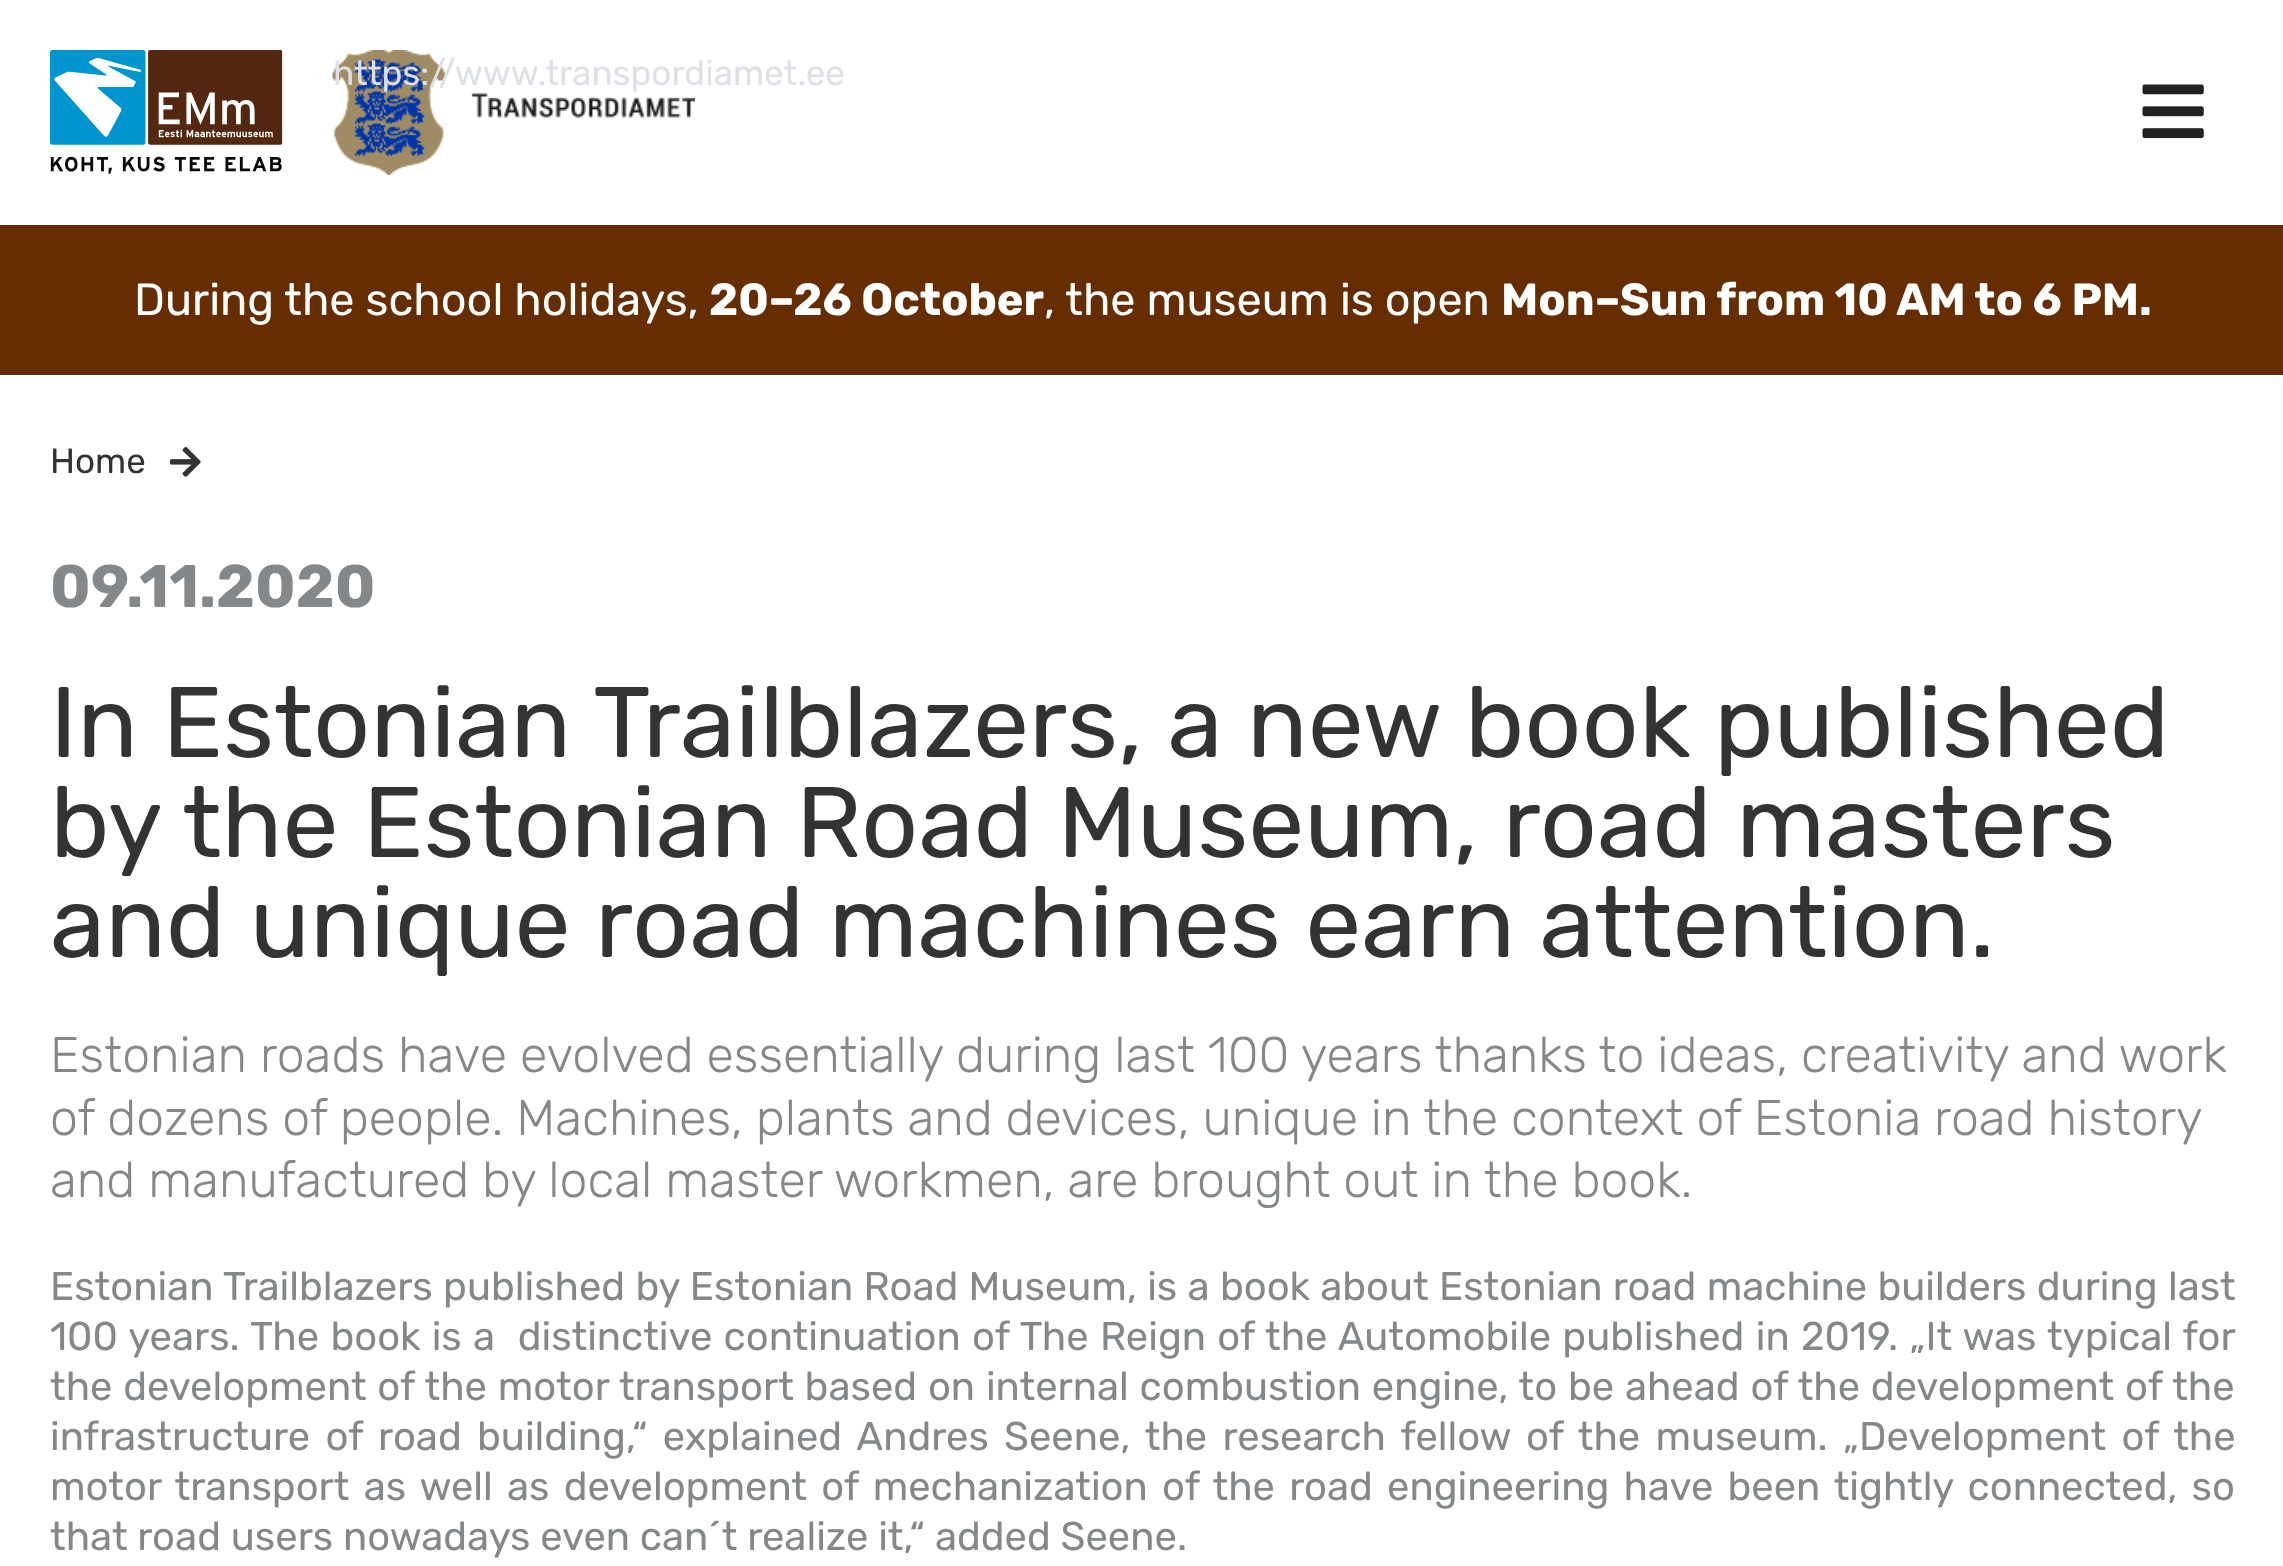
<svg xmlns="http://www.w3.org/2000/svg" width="2283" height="1566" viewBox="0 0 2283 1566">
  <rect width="100%" height="100%" fill="#fff"/>
  <image x="50" y="50" width="233" height="124" href="img/1.png"/>
  <image x="332" y="50" width="363" height="125" href="img/2.png"/>
  <image x="2142" y="84" width="62" height="55" href="img/3.png"/>
  <path d="M0 225h2283v150H0z" fill="#662e00"/>
  <image x="170" y="447" width="31" height="30" href="img/4.png"/>
  <text x="333" y="85" font-family="Rubik" font-size="35" fill="#dde0e6">https://www.transpordiamet.ee</text>
  <text x="134" y="315" font-family="Rubik" font-size="45" fill="#fff">During the school holidays,</text>
  <text x="709" y="315" font-family="Rubik" font-size="45" font-weight="bold" fill="#fff">20–26 October</text>
  <text x="1044" y="315" font-family="Rubik" font-size="45" fill="#fff">, the museum is open</text>
  <text x="1501" y="315" font-family="Rubik" font-size="45" font-weight="bold" fill="#fff">Mon–Sun from 10 AM to 6 PM.</text>
  <text x="50" y="473" font-family="Rubik" font-size="35" fill="#323434">Home</text>
  <text x="50" y="607" font-family="Rubik" font-size="60" font-weight="bold" fill="#84888a">09.11.2020</text>
  <g font-family="Rubik" font-size="100" fill="#323434">
    <text x="50" y="757">In Estonian Trailblazers, a new book published</text>
    <text x="50" y="857">by the Estonian Road Museum, road masters</text>
    <text x="50" y="957">and unique road machines earn attention.</text>
  </g>
  <g font-family="Rubik" font-size="50" font-weight="300" fill="#84888a">
    <text x="50" y="1072">Estonian roads have evolved essentially during last 100 years thanks to ideas, creativity and work</text>
    <text x="50" y="1135">of dozens of people. Machines, plants and devices, unique in the context of Estonia road history</text>
    <text x="50" y="1197">and manufactured by local master workmen, are brought out in the book.</text>
  </g>
  <g font-family="Rubik" font-size="40" fill="#84888a">
    <text x="50" y="1300" word-spacing="0.5">Estonian Trailblazers published by Estonian Road Museum, is a book about Estonian road machine builders during last</text>
    <text x="50" y="1350" word-spacing="1.5" xml:space="preserve">100 years. The book is a  distinctive continuation of The Reign of the Automobile published in 2019. „It was typical for</text>
    <text x="50" y="1400" word-spacing="1">the development of the motor transport based on internal combustion engine, to be ahead of the development of the</text>
    <text x="50" y="1450" word-spacing="5.5">infrastructure of road building,“ explained Andres Seene, the research fellow of the museum. „Development of the</text>
    <text x="50" y="1500" word-spacing="4.4">motor transport as well as development of mechanization of the road engineering have been tightly connected, so</text>
    <text x="50" y="1550">that road users nowadays even can´t realize it,“ added Seene.</text>
  </g>
</svg>
